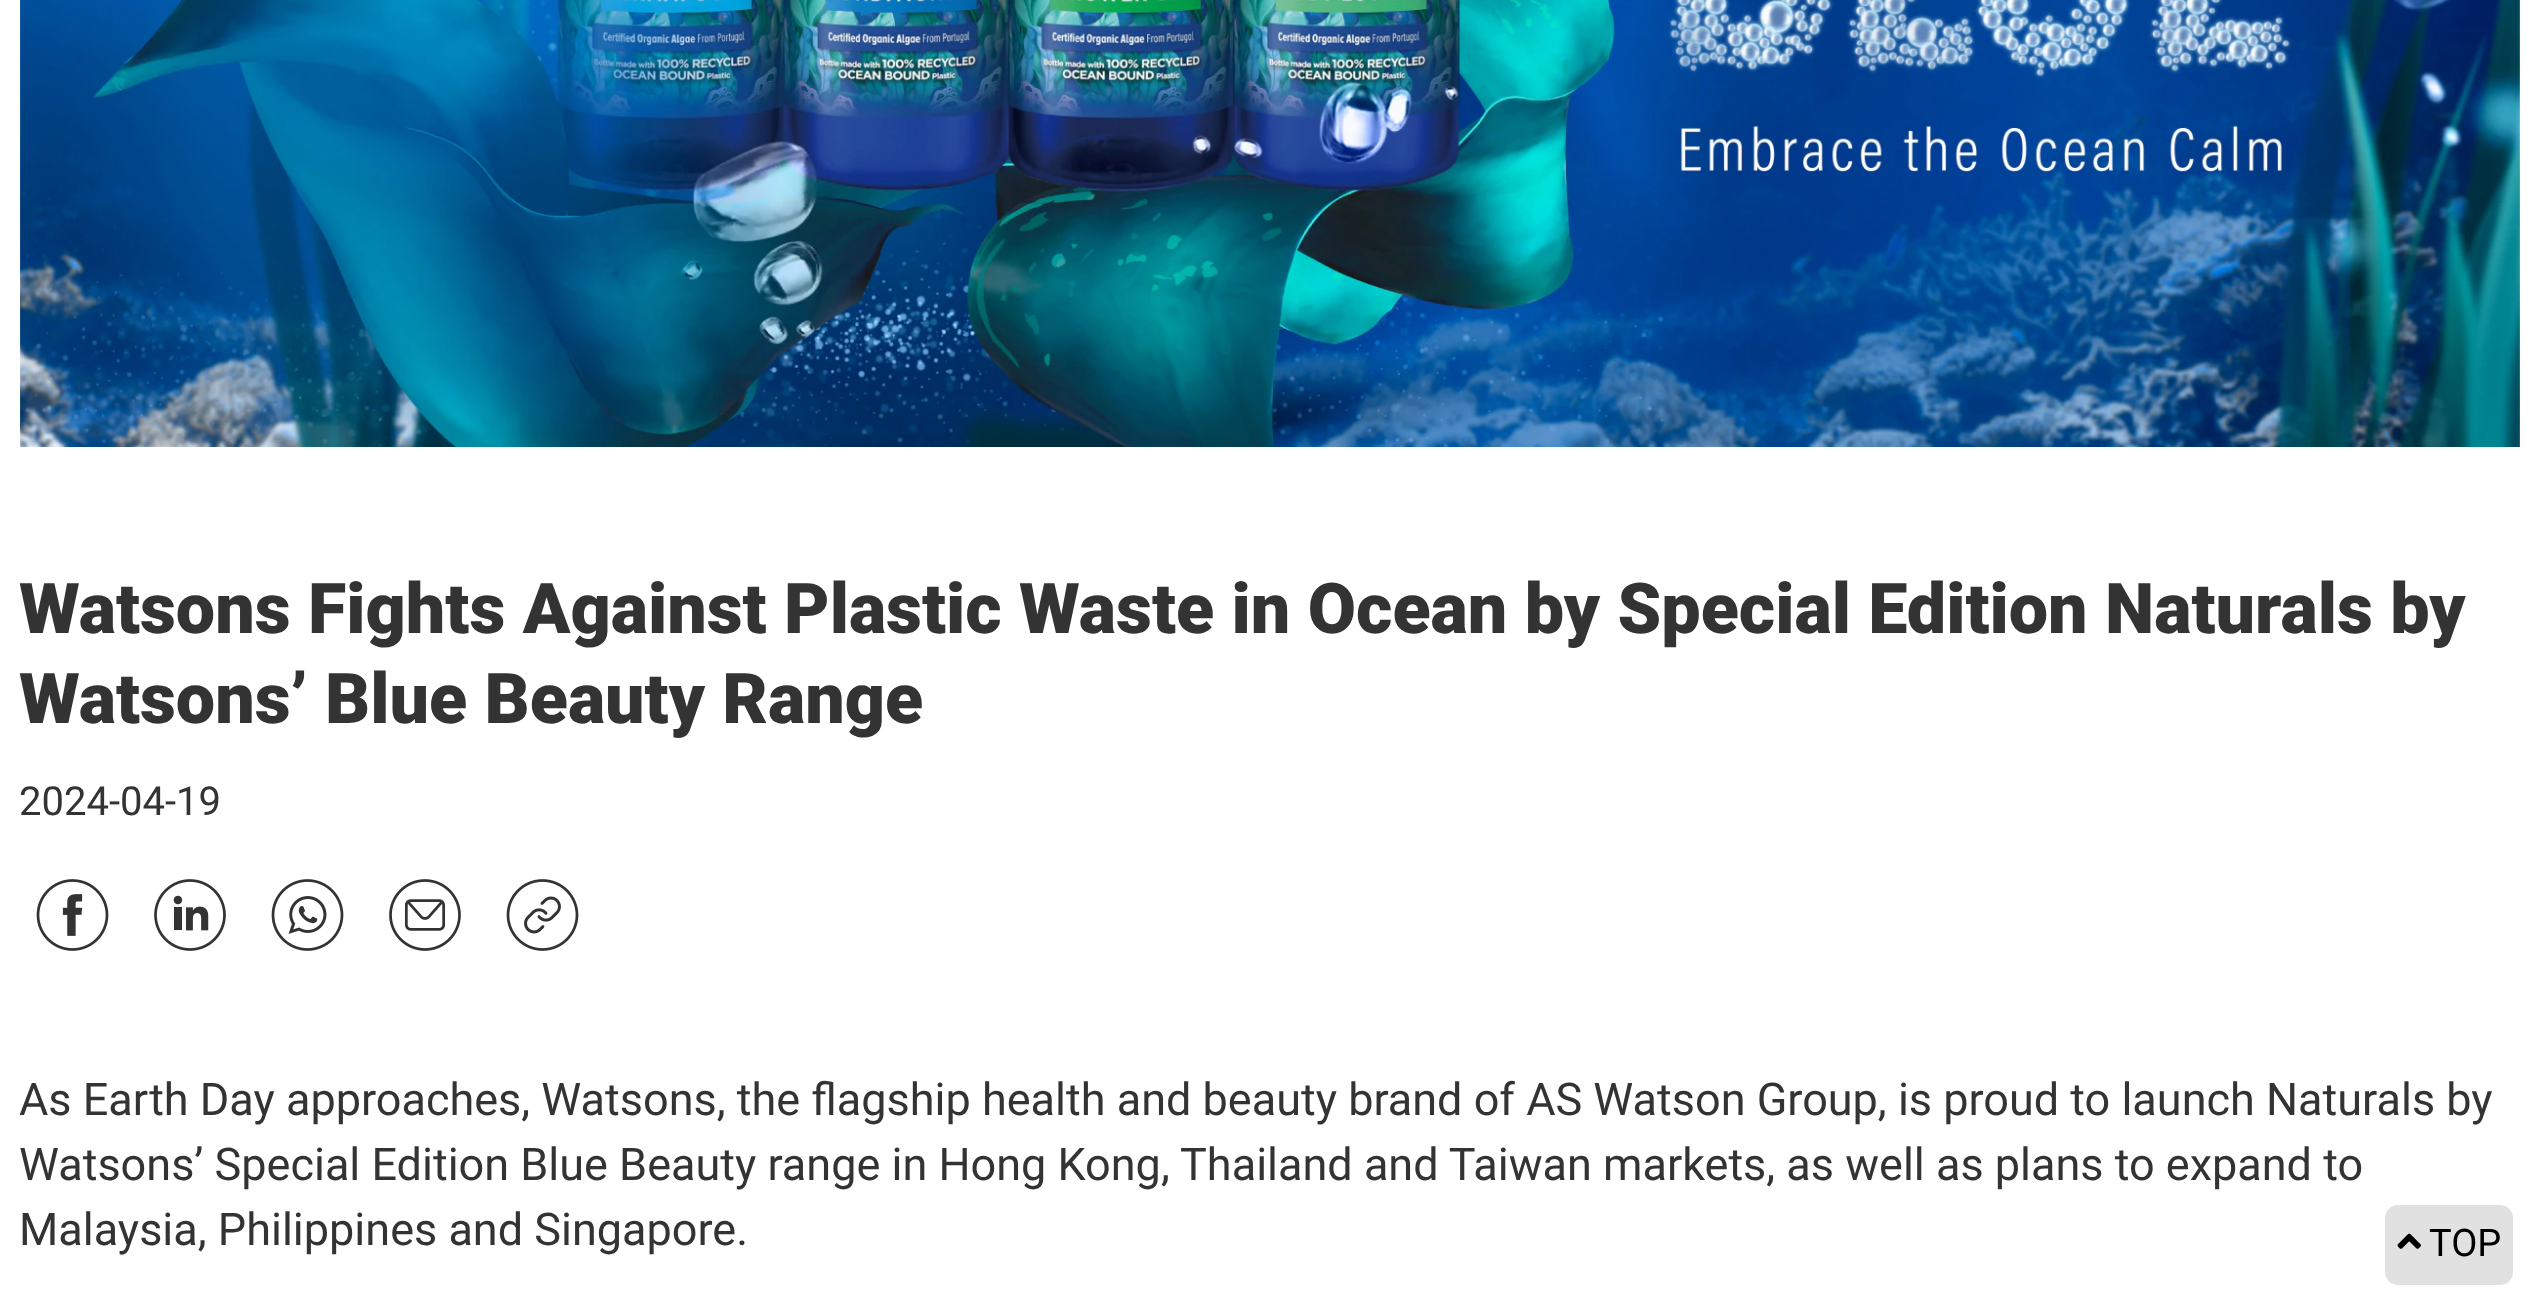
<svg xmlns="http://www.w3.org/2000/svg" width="2537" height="1309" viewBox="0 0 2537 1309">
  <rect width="100%" height="100%" fill="#fff"/>
  <image x="20" y="0" width="2500" height="447" href="img/1.png"/>
  <image x="36" y="879" width="73" height="72" href="img/2.png"/>
  <image x="154" y="879" width="72" height="72" href="img/3.png"/>
  <image x="271" y="879" width="73" height="72" href="img/4.png"/>
  <image x="389" y="879" width="72" height="72" href="img/5.png"/>
  <image x="506" y="879" width="73" height="72" href="img/6.png"/>
  <rect x="2385" y="1205" width="128" height="80" rx="13" fill="#e1e1e1"/>
  <image x="2397" y="1233" width="24" height="16" href="img/7.png"/>
  <g font-family="Roboto" font-size="70" font-weight="900" fill="#333">
    <text x="19" y="633">Watsons Fights Against Plastic Waste in Ocean by Special Edition Naturals by</text>
    <text x="19" y="723">Watsons’ Blue Beauty Range</text>
  </g>
  <text x="19" y="815" font-family="Roboto" font-size="40" fill="#333">2024-04-19</text>
  <g font-family="Roboto" font-size="45" fill="#333">
    <text x="19" y="1115">As Earth Day approaches, Watsons, the flagship health and beauty brand of AS Watson Group, is proud to launch Naturals by</text>
    <text x="19" y="1180">Watsons’ Special Edition Blue Beauty range in Hong Kong, Thailand and Taiwan markets, as well as plans to expand to</text>
    <text x="19" y="1245">Malaysia, Philippines and Singapore.</text>
  </g>
  <text x="2429" y="1256" font-family="Roboto" font-size="38" fill="#000">TOP</text>
</svg>
